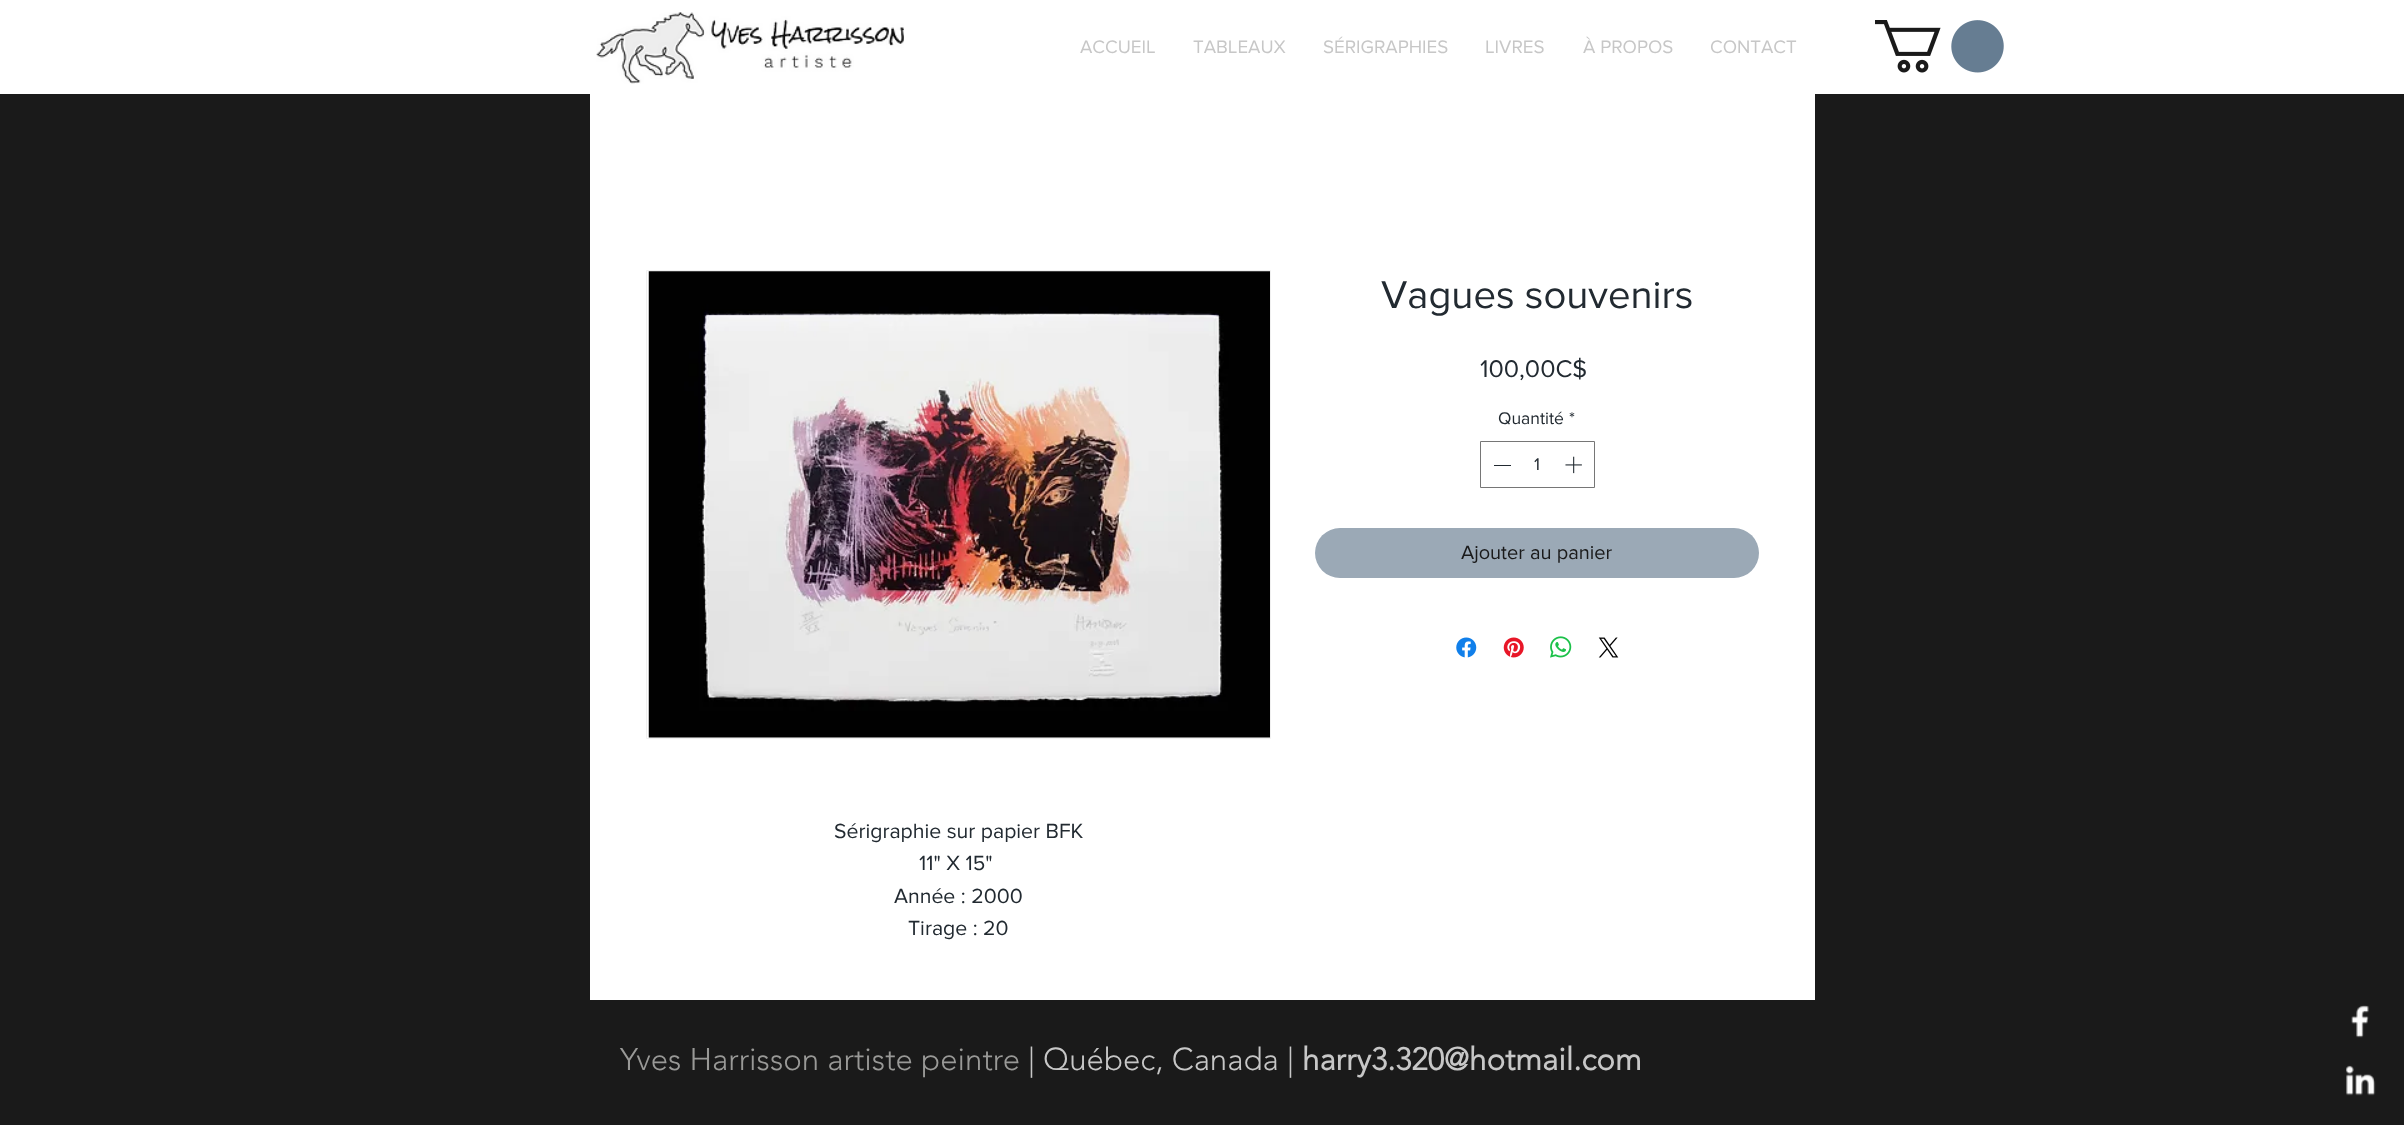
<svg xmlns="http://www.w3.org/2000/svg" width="2404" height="1125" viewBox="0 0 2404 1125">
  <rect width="100%" height="100%" fill="#1a1a1a"/>
  <path d="M0 0h2404v94H0z" fill="#fff"/>
  <image x="596" y="12" width="308" height="72" href="img/1.png"/>
  <image x="1875" y="20" width="129" height="53" href="img/2.png"/>
  <path d="M590 94h1225v906H590z" fill="#fff"/>
  <path d="M1480.5 441.5h114v46H1480.5z" fill="none" stroke="#767676"/>
  <path d="M1494 465h17v1H1494z" fill="#222a31"/>
  <image x="1565" y="456" width="17" height="18" href="img/3.png"/>
  <rect x="1315" y="528" width="444" height="50" rx="25" fill="#9ba9b6"/>
  <image x="1456" y="637" width="21" height="21" href="img/4.png"/>
  <image x="1503" y="637" width="21" height="21" href="img/5.png"/>
  <image x="1550" y="636" width="22" height="22" href="img/6.png"/>
  <image x="1598" y="637" width="21" height="21" href="img/7.png"/>
  <path d="M646.5 270.5h624v468H646.5z" fill="none" stroke="#f0f0f0"/>
  <image x="648" y="271" width="622" height="467" href="img/8.png"/>
  <image x="2351" y="1005" width="18" height="33" href="img/9.png"/>
  <image x="2346" y="1065" width="30" height="31" href="img/10.png"/>
  <g font-family="'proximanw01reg'" font-size="18.75" fill="#c7c7c7">
    <text x="1080" y="53">ACCUEIL</text>
    <text x="1193" y="53">TABLEAUX</text>
    <text x="1323" y="53">SÉRIGRAPHIES</text>
    <text x="1485" y="53">LIVRES</text>
    <text x="1583" y="53">À PROPOS</text>
    <text x="1710" y="53">CONTACT</text>
  </g>
  <text x="1381" y="308" font-family="'proximanw01reg'" font-size="40" fill="#222a31">Vagues souvenirs</text>
  <text x="1480" y="377" font-family="'proximanw01reg'" font-size="25" fill="#222a31">100,00C$</text>
  <g font-family="'proximanw01reg'" font-size="17.5" fill="#222a31">
    <text x="1498" y="424">Quantité</text>
    <text x="1569" y="424">*</text>
    <text x="1534" y="470">1</text>
  </g>
  <text x="1461" y="559" font-family="'proximanw01reg'" font-size="20" fill="#1a1a1a">Ajouter au panier</text>
  <g font-family="'proximanw01reg'" font-size="21.25" fill="#222a31">
    <text x="834" y="838">Sérigraphie sur papier BFK</text>
    <text x="919" y="870">11" X 15"</text>
    <text x="894" y="903">Année : 2000</text>
    <text x="908" y="935">Tirage : 20</text>
  </g>
  <text x="620" y="1070" font-family="'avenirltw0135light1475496'" font-size="31.25" font-weight="300" fill="#999997">Yves Harrisson artiste peintre</text>
  <text x="1028" y="1070" font-family="'avenirltw0135light1475496'" font-size="31.25" font-weight="300" fill="#c7c7c7">| Québec, Canada |</text>
  <text x="1302" y="1070" font-family="'avenirltw0135light1475496'" font-size="31.25" font-weight="bold" fill="#c7c7c7">harry3.320@hotmail.com</text>
</svg>
